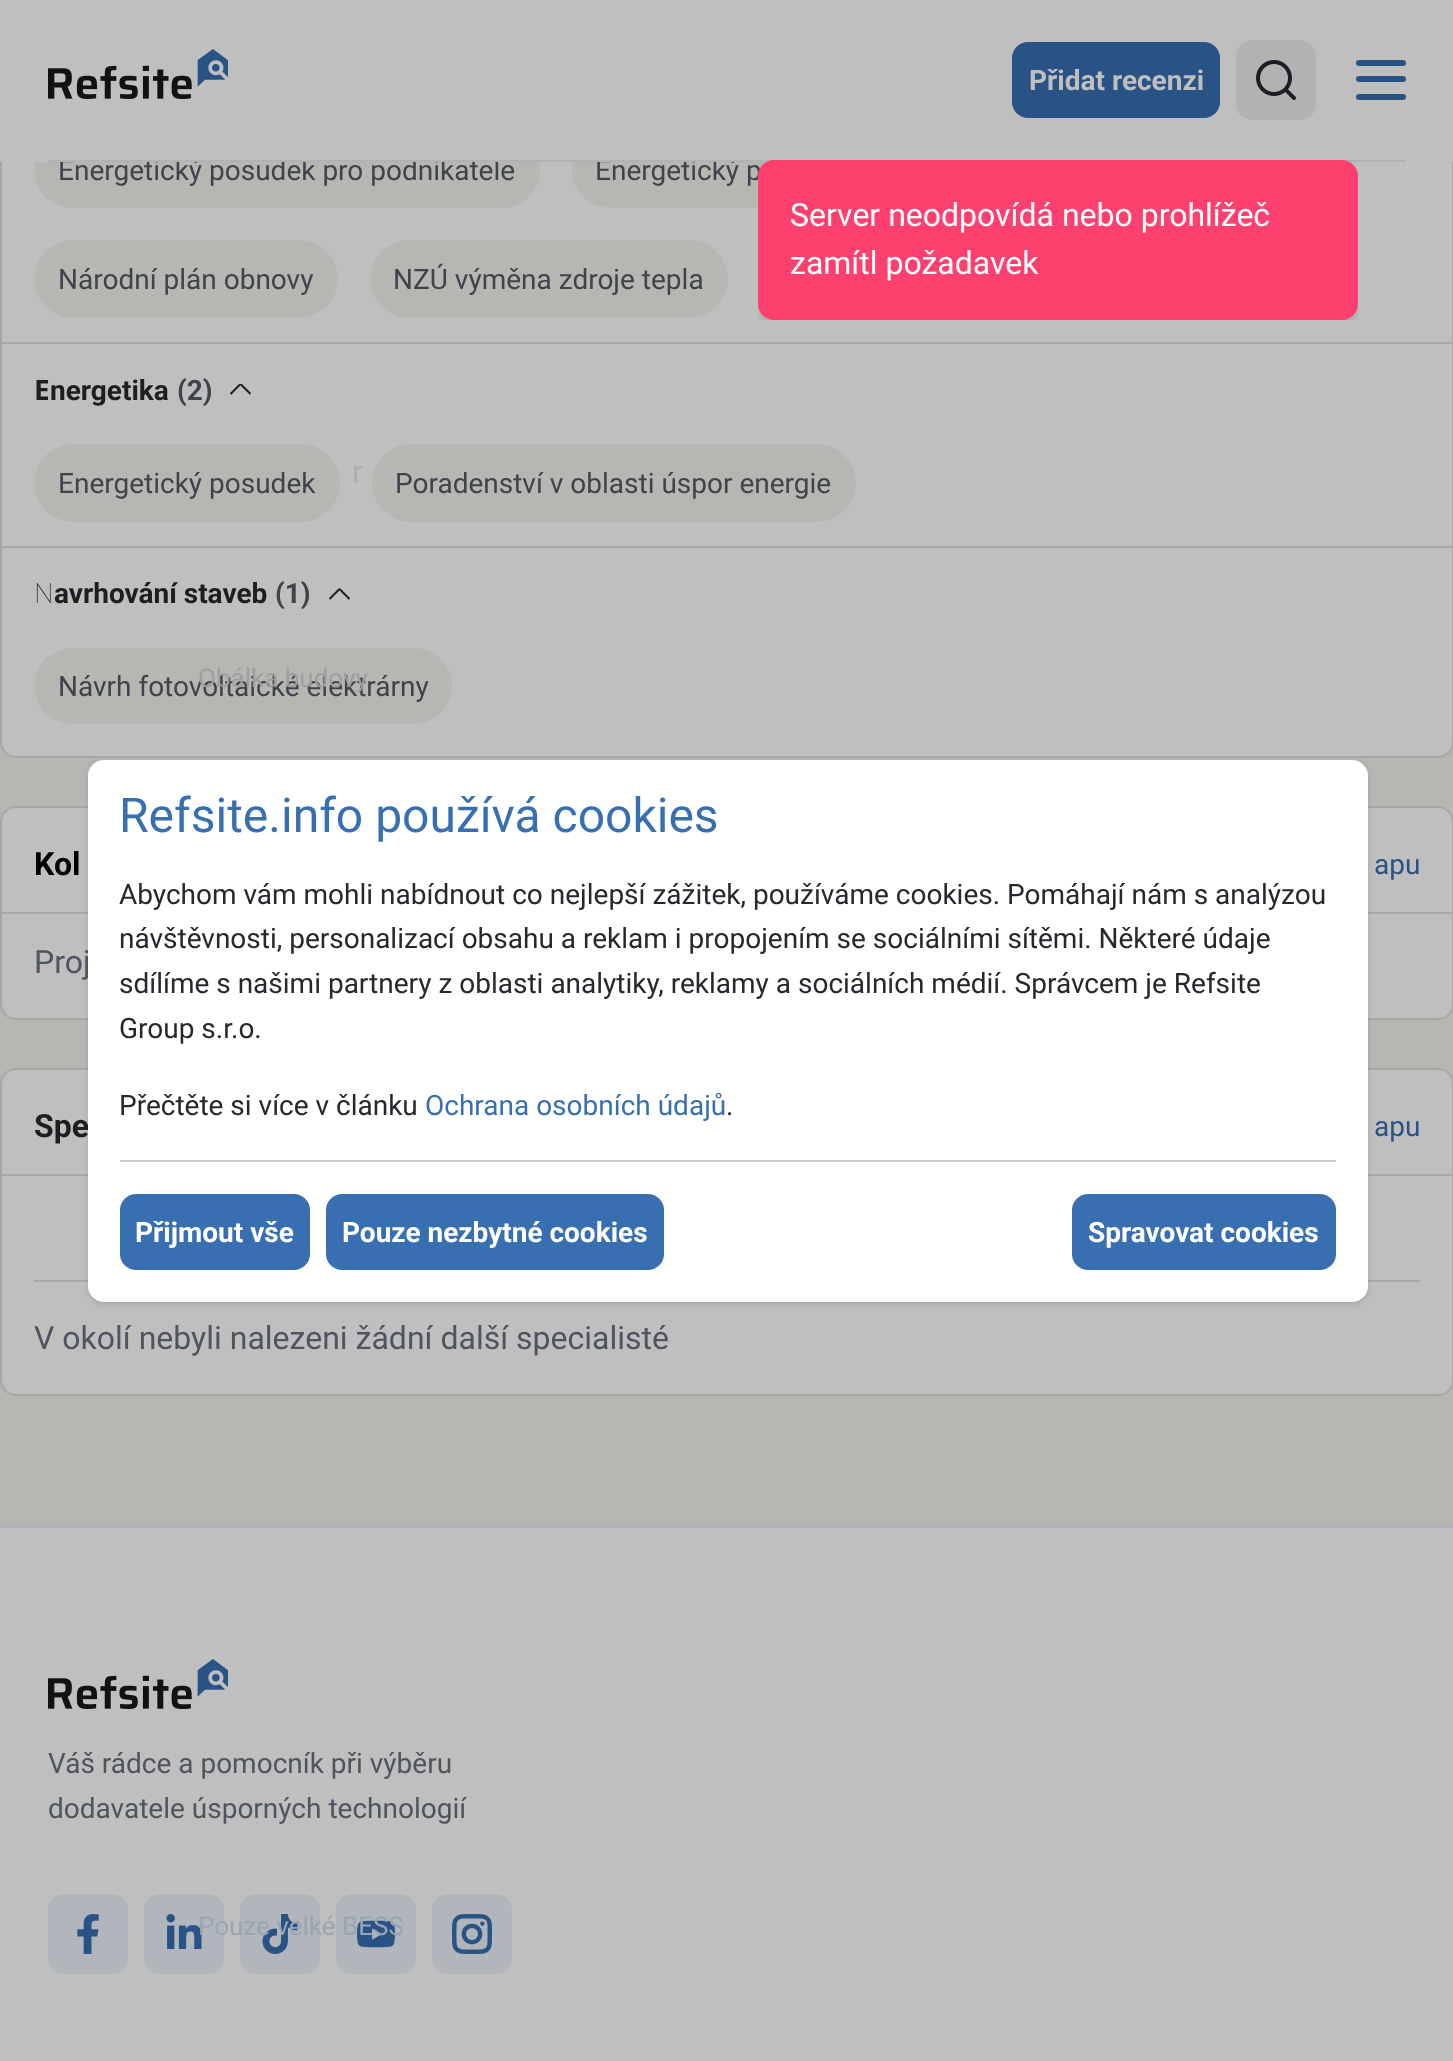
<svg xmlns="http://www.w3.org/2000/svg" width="1453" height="2061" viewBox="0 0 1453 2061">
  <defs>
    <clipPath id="clip1"><path d="M228 384h24v14H228z"/></clipPath>
    <clipPath id="clip2"><path d="M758 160h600v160H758z"/></clipPath>
  </defs>
  <rect width="100%" height="100%" fill="#bfbfbf"/>
  <path d="M0 742h1453v782H0z" fill="#b6b6b3"/>
  <rect x="1" y="-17" width="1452" height="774" rx="15" fill="#bfbfbf" stroke="#a8a7a5" stroke-width="2"/>
  <rect x="34" y="132" width="506" height="76" rx="38" fill="#b6b6b3"/>
  <rect x="572" y="132" width="532" height="76" rx="38" fill="#b6b6b3"/>
  <rect x="34" y="240" width="304" height="78" rx="39" fill="#b6b6b3"/>
  <rect x="370" y="240" width="358" height="78" rx="39" fill="#b6b6b3"/>
  <path d="M2 342h1450v2H2z" fill="#a8a7a5"/>
  <g clip-path="url(#clip1)">
    <path d="M230.5 394L238.5 386C241 383.5 240 383.5 242.5 386L250.5 394" fill="none" stroke="#1c1e21" stroke-width="2"/>
  </g>
  <rect x="34" y="444" width="306" height="78" rx="39" fill="#b6b6b3"/>
  <rect x="372" y="444" width="484" height="78" rx="39" fill="#b6b6b3"/>
  <path d="M2 546h1450v2H2z" fill="#a8a7a5"/>
  <path d="M329.5 599L337.5 591C340 588.5 339.5 588.5 341.5 591L349.5 599" fill="none" stroke="#1c1e21" stroke-width="2"/>
  <rect x="34" y="648" width="418" height="76" rx="38" fill="#b6b6b3"/>
  <rect x="1" y="807" width="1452" height="212" rx="15" fill="#bfbfbf" stroke="#a8a7a5" stroke-width="2"/>
  <path d="M2 912h1450v2H2z" fill="#a8a7a5"/>
  <rect x="1" y="1069" width="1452" height="326" rx="15" fill="#bfbfbf" stroke="#a8a7a5" stroke-width="2"/>
  <path d="M2 1174h1450v2H2z" fill="#a8a7a5"/>
  <path d="M34 1280h1386v2H34z" fill="#a8a7a5"/>
  <path d="M0 1524h1453v4H0z" fill="#b1b2b3"/>
  <image x="48" y="1659" width="180" height="50" href="img/1.png"/>
  <rect x="48" y="1894" width="80" height="80" rx="16" fill="#b0b6bc"/>
  <image x="77" y="1914" width="22" height="40" href="img/3.png"/>
  <rect x="144" y="1894" width="80" height="80" rx="16" fill="#b0b6bc"/>
  <image x="166" y="1914" width="36" height="35" href="img/4.png"/>
  <rect x="240" y="1894" width="80" height="80" rx="16" fill="#b0b6bc"/>
  <image x="262" y="1914" width="36" height="40" href="img/5.png"/>
  <rect x="336" y="1894" width="80" height="80" rx="16" fill="#b0b6bc"/>
  <image x="357" y="1920" width="38" height="28" href="img/6.png"/>
  <rect x="432" y="1894" width="80" height="80" rx="16" fill="#b0b6bc"/>
  <image x="452" y="1914" width="40" height="40" href="img/7.png"/>
  <rect x="90" y="764" width="1276" height="538" rx="14" fill="#0000001a" filter="blur(2px)"/>
  <rect x="88" y="762" width="1280" height="542" rx="16" fill="#0000001a" filter="blur(3px)"/>
  <text x="352" y="483" font-family="Roboto" font-size="32" fill="#adadac">r</text>
  <text x="198" y="1935" font-family="Roboto" font-size="26" fill="#99a5b2">Pouze velké BESS</text>
  <g font-family="Roboto" font-size="28" fill="#3f444b">
    <text x="58" y="180">Energetický posudek pro podnikatele</text>
    <text x="595" y="180">Energetický p</text>
  </g>
  <path d="M0 0h1453v162H0z" fill="#bfbfbf"/>
  <path d="M48 160h1358v2H48z" fill="#b1b2b3"/>
  <image x="48" y="49" width="180" height="50" href="img/1.png"/>
  <rect x="1236" y="40" width="80" height="80" rx="16" fill="#b1b2b3"/>
  <image x="1256" y="60" width="40" height="40" href="img/2.png"/>
  <rect x="1356" y="94" width="50" height="6" rx="3" fill="#2a5385"/>
  <rect x="1356" y="76" width="50" height="6" rx="3" fill="#2a5385"/>
  <rect x="1356" y="60" width="50" height="6" rx="3" fill="#2a5385"/>
  <rect x="1012" y="42" width="208" height="76" rx="16" fill="#2a5385"/>
  <text x="1029" y="90" font-family="Roboto" font-size="28" font-weight="bold" fill="#bfbfbf">Přidat recenzi</text>
  <g font-family="Roboto" font-size="28" fill="#3f444b">
    <text x="58" y="289">Národní plán obnovy</text>
    <text x="393" y="289">NZÚ výměna zdroje tepla</text>
  </g>
  <text x="34" y="400" font-family="Noto Sans" font-size="28" font-weight="bold" fill="#1c1e21">E</text>
  <text x="50" y="400" font-family="Roboto" font-size="28" font-weight="bold" fill="#1c1e21">nergetika</text>
  <text x="177" y="400" font-family="Roboto" font-size="28" font-weight="bold" fill="#3f444b">(2)</text>
  <g font-family="Roboto" font-size="28" fill="#3f444b">
    <text x="58" y="493">Energetický posudek</text>
    <text x="395" y="493">Poradenství v oblasti úspor energie</text>
  </g>
  <text x="34" y="603" font-family="Noto Sans" font-size="28" font-weight="100" fill="#1c1e21">N</text>
  <text x="54" y="603" font-family="Roboto" font-size="28" font-weight="bold" fill="#1c1e21">avrhování staveb</text>
  <text x="275" y="603" font-family="Roboto" font-size="28" font-weight="bold" fill="#3f444b">(1)</text>
  <text x="58" y="696" font-family="Roboto" font-size="28" fill="#3f444b">Návrh fotovoltaické elektrárny</text>
  <text x="198" y="687" font-family="Roboto" font-size="26" fill="#9e9e9e">Obálka budovy</text>
  <text x="34" y="875" font-family="Roboto" font-size="32" font-weight="bold" fill="#000">Kol</text>
  <text x="1374" y="874" font-family="Roboto" font-size="28" fill="#2a5385">apu</text>
  <text x="34" y="973" font-family="Roboto" font-size="32" fill="#4f555e">Proj</text>
  <text x="34" y="1137" font-family="Roboto" font-size="32" font-weight="bold" fill="#1c1e21">Spe</text>
  <text x="1374" y="1136" font-family="Roboto" font-size="28" fill="#2a5385">apu</text>
  <text x="34" y="1349" font-family="Roboto" font-size="32" fill="#4f555e">V okolí nebyli nalezeni žádní další specialisté</text>
  <g clip-path="url(#clip2)">
    <rect x="766" y="176" width="584" height="144" rx="8" fill="#0000001a" filter="blur(6px)"/>
    <rect x="764" y="186" width="588" height="148" rx="10" fill="#0000001a" filter="blur(15px)"/>
  </g>
  <rect x="758" y="160" width="600" height="160" rx="16" fill="#fd406d"/>
  <g font-family="Roboto" font-size="32" fill="#fff">
    <text x="790" y="226">Server neodpovídá nebo prohlížeč</text>
    <text x="790" y="274">zamítl požadavek</text>
  </g>
  <g font-family="Roboto" font-size="28" fill="#4f555e">
    <text x="48" y="1773">Váš rádce a pomocník při výběru</text>
    <text x="48" y="1818">dodavatele úsporných technologií</text>
  </g>
  <rect x="88" y="760" width="1280" height="542" rx="16" fill="#fff"/>
  <text x="119" y="832" font-family="Roboto" font-size="48" fill="#386fb1">Refsite.info používá cookies</text>
  <g font-family="Roboto" font-size="28" fill="#25282c">
    <text x="119" y="904">Abychom vám mohli nabídnout co nejlepší zážitek, používáme cookies. Pomáhají nám s analýzou</text>
    <text x="119" y="948">návštěvnosti, personalizací obsahu a reklam i propojením se sociálními sítěmi. Některé údaje</text>
    <text x="119" y="993">sdílíme s našimi partnery z oblasti analytiky, reklamy a sociálních médií. Správcem je Refsite</text>
    <text x="119" y="1038">Group s.r.o.</text>
    <text x="119" y="1115">Přečtěte si více v článku</text>
  </g>
  <text x="425" y="1115" font-family="Roboto" font-size="28" fill="#386fb1">Ochrana osobních údajů</text>
  <text x="726" y="1115" font-family="Roboto" font-size="28" fill="#25282c">.</text>
  <path d="M120 1160h1216v2H120z" fill="#ccc"/>
  <rect x="120" y="1194" width="190" height="76" rx="16" fill="#386fb1"/>
  <text x="135" y="1242" font-family="Roboto" font-size="28" font-weight="bold" fill="#fff">Přijmout vše</text>
  <rect x="326" y="1194" width="338" height="76" rx="16" fill="#386fb1"/>
  <text x="342" y="1242" font-family="Roboto" font-size="28" font-weight="bold" fill="#fff">Pouze nezbytné cookies</text>
  <rect x="1072" y="1194" width="264" height="76" rx="16" fill="#386fb1"/>
  <text x="1088" y="1242" font-family="Roboto" font-size="28" font-weight="bold" fill="#fff">Spravovat cookies</text>
</svg>
